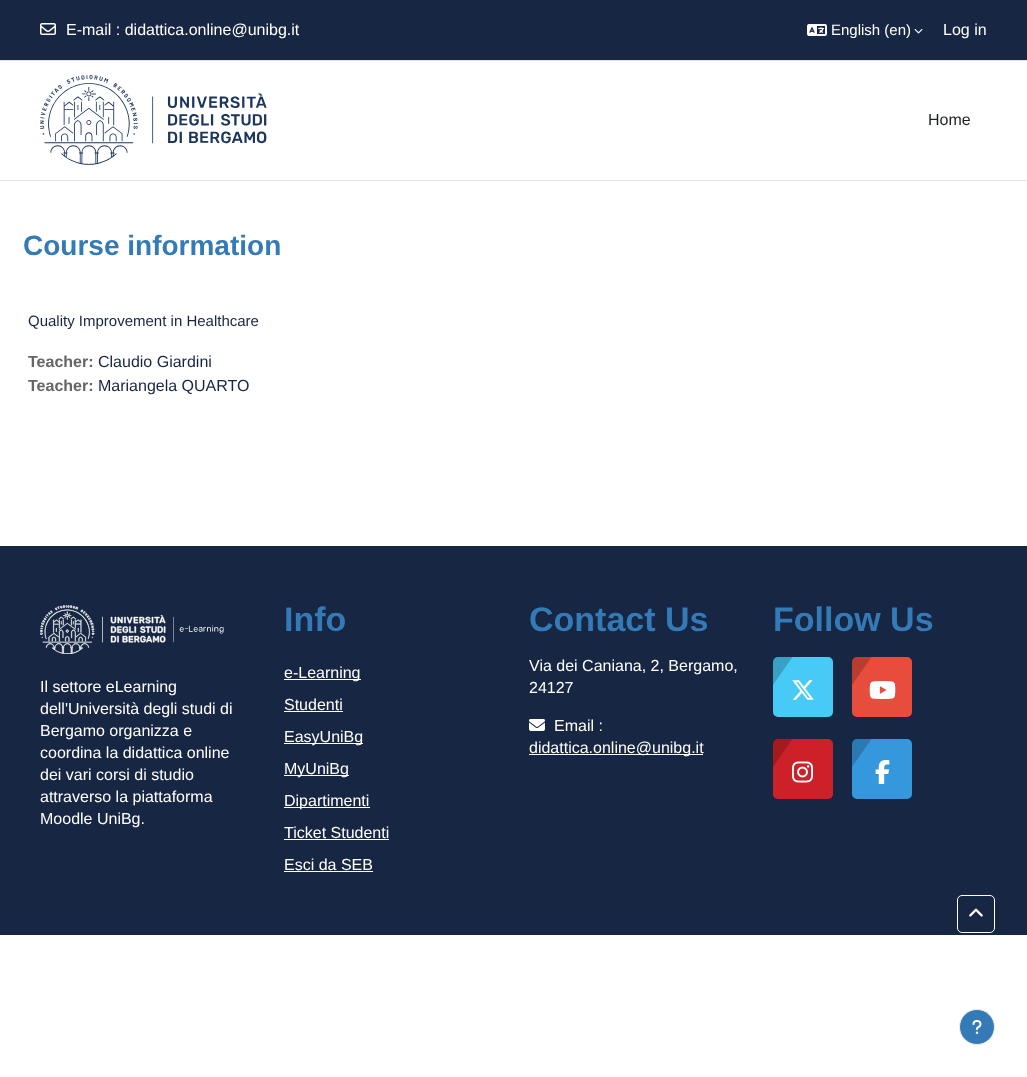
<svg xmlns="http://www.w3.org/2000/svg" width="1027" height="1077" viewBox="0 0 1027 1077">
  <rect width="100%" height="100%" fill="#fff"/>
  <path d="M0 0h1027v60H0z" fill="#172642"/>
  <path d="M0 60h1027v1H0z" fill="#e8e3e3"/>
  <image x="40" y="23" width="16" height="12" href="img/1.png"/>
  <image x="807" y="24" width="20" height="12" href="img/2.png"/>
  <image x="914" y="29" width="9" height="5" href="img/3.png"/>
  <path d="M0 180h1027v1H0z" fill="#e8e3e3"/>
  <image x="40" y="75" width="227" height="90" href="img/4.png"/>
  <path d="M0 546h1027v389H0z" fill="#172642"/>
  <image x="40" y="605" width="184" height="49" href="img/5.png"/>
  <path d="M284 679h77v1H284z" fill="#fff"/>
  <path d="M284 711h59v1H284z" fill="#fff"/>
  <path d="M284 743h79v1H284z" fill="#fff"/>
  <path d="M284 775h65v1H284z" fill="#fff"/>
  <path d="M284 807h86v1H284z" fill="#fff"/>
  <path d="M284 839h105v1H284z" fill="#fff"/>
  <path d="M284 871h89v1H284z" fill="#fff"/>
  <image x="529" y="719" width="16" height="12" href="img/6.png"/>
  <path d="M529 754h174v1H529z" fill="#fff"/>
  <rect x="773" y="657" width="60" height="60" rx="5" fill="#47caf6"/>
  <image x="792" y="680" width="22" height="20" href="img/7.png"/>
  <path d="M778 657H792.5L773 685V662C773 659 775 657 778 657Z" fill="#00000033"/>
  <rect x="852" y="657" width="60" height="60" rx="5" fill="#e84c3d"/>
  <image x="869" y="681" width="27" height="18" href="img/8.png"/>
  <path d="M857 657H871.5L852 685V662C852 659 854 657 857 657Z" fill="#00000033"/>
  <rect x="773" y="739" width="60" height="60" rx="5" fill="#cd2129"/>
  <image x="792" y="761" width="21" height="22" href="img/9.png"/>
  <path d="M778 739H792.5L773 767V744C773 741 775 739 778 739Z" fill="#00000033"/>
  <rect x="852" y="739" width="60" height="60" rx="5" fill="#3598dc"/>
  <image x="875" y="760" width="15" height="24" href="img/10.png"/>
  <path d="M857 739H871.5L852 767V744C852 741 854 739 857 739Z" fill="#00000033"/>
  <circle cx="977" cy="1027" r="17.5" fill="#337ab7" stroke="#eee"/>
  <image x="972" y="1020" width="10" height="14" href="img/11.png"/>
  <rect x="957.5" y="895.5" width="37" height="37" rx="4.5" fill="none" stroke="#fff"/>
  <image x="969" y="908" width="14" height="9" href="img/12.png"/>
  <text x="66" y="35" font-family="Liberation Sans" font-size="16" fill="#fff">E-mail : didattica.online@unibg.it</text>
  <text x="831" y="35" font-family="Liberation Sans" font-size="15" fill="#fff">English (en)</text>
  <text x="943" y="35" font-family="Liberation Sans" font-size="16" fill="#fff">Log in</text>
  <text x="928" y="125" font-family="Liberation Sans" font-size="16" fill="#1d2125">Home</text>
  <text x="23" y="255" font-family="Liberation Sans" font-size="28" font-weight="bold" fill="#337ab7">Course information</text>
  <text x="28" y="326" font-family="Liberation Sans" font-size="15" fill="#172642">Quality Improvement in Healthcare</text>
  <text x="28" y="367" font-family="Liberation Sans" font-size="16" font-weight="bold" fill="#656565">Teacher:</text>
  <text x="98" y="367" font-family="Liberation Sans" font-size="16" fill="#172642">Claudio Giardini</text>
  <text x="28" y="391" font-family="Liberation Sans" font-size="16" font-weight="bold" fill="#656565">Teacher:</text>
  <text x="98" y="391" font-family="Liberation Sans" font-size="16" fill="#172642">Mariangela QUARTO</text>
  <g font-family="Liberation Sans" font-size="16" fill="#fff">
    <text x="40" y="692">Il settore eLearning</text>
    <text x="40" y="714">dell'Università degli studi di</text>
    <text x="40" y="736">Bergamo organizza e</text>
    <text x="40" y="758">coordina la didattica online</text>
    <text x="40" y="780">dei vari corsi di studio</text>
    <text x="40" y="802">attraverso la piattaforma</text>
    <text x="40" y="824">Moodle UniBg.</text>
  </g>
  <text x="284" y="631" font-family="Liberation Sans" font-size="34" font-weight="bold" fill="#337ab7">Info</text>
  <g font-family="Liberation Sans" font-size="16" fill="#fff">
    <text x="284" y="678">e-Learning</text>
    <text x="284" y="710">Studenti</text>
    <text x="284" y="742">EasyUniBg</text>
    <text x="284" y="774">MyUniBg</text>
    <text x="284" y="806">Dipartimenti</text>
    <text x="284" y="838">Ticket Studenti</text>
    <text x="284" y="870">Esci da SEB</text>
  </g>
  <text x="529" y="631" font-family="Liberation Sans" font-size="34" font-weight="bold" fill="#337ab7">Contact Us</text>
  <g font-family="Liberation Sans" font-size="16" fill="#fff">
    <text x="529" y="671">Via dei Caniana, 2, Bergamo,</text>
    <text x="529" y="693">24127</text>
    <text x="554" y="731">Email :</text>
    <text x="529" y="753">didattica.online@unibg.it</text>
  </g>
  <text x="773" y="631" font-family="Liberation Sans" font-size="34" font-weight="bold" fill="#337ab7">Follow Us</text>
</svg>
